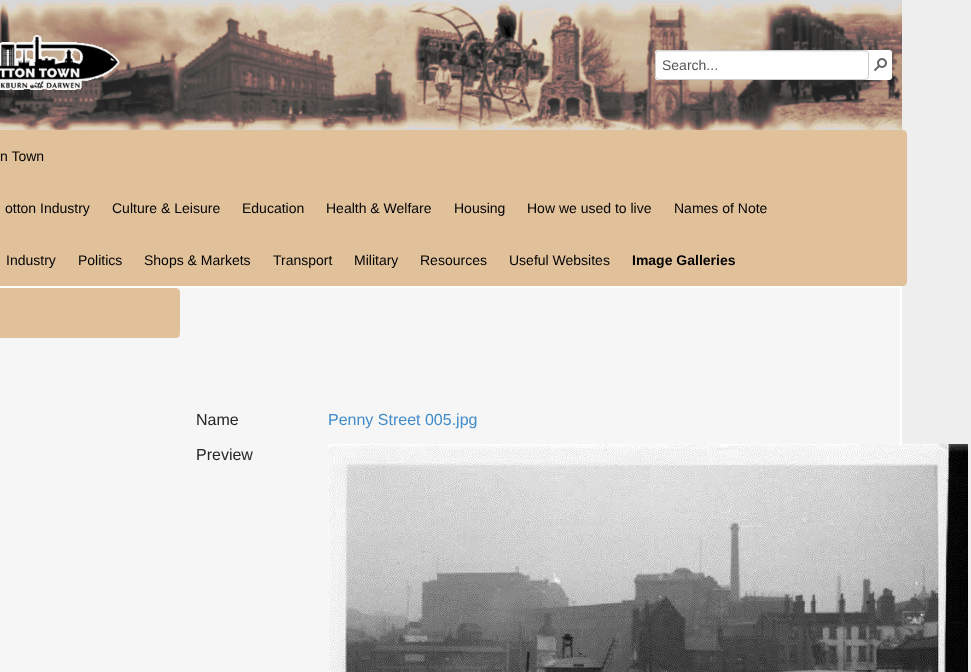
<svg xmlns="http://www.w3.org/2000/svg" width="971" height="672" viewBox="0 0 971 672">
  <rect width="100%" height="100%" fill="#eee"/>
  <image x="0" y="0" width="902" height="130" href="img/1.png"/>
  <image x="0" y="35" width="120" height="55" href="img/2.png"/>
  <rect x="655" y="50" width="237" height="30" rx="3" fill="#fff"/>
  <rect x="655" y="50" width="214" height="30" rx="4" fill="#fff"/>
  <path d="M659 52H865C867 52 868 53 868 55V54C868 52 867 51 865 51H659C657 51 656 52 656 54V55C656 53 657 52 659 52Z" fill="#ececec"/>
  <rect x="655.5" y="50.5" width="213" height="29" rx="3.5" fill="none" stroke="#ccc"/>
  <image x="873" y="58" width="14" height="14" href="img/3.png"/>
  <path d="M0 130H903C905 130 907 132 907 134V282C907 284 905 286 903 286H0Z" fill="#e1c19a"/>
  <path d="M-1 287h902v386H-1z" fill="#f6f6f6" stroke="#fff" stroke-width="2"/>
  <path d="M0 288H176C178 288 180 290 180 292V334C180 336 178 338 176 338H0Z" fill="#e1c19a"/>
  <image x="328" y="444" width="640" height="228" href="img/4.png"/>
  <text x="662" y="70" font-family="Liberation Sans" font-size="14" fill="#555">Search...</text>
  <g font-family="Liberation Sans" font-size="14" fill="#000">
    <text x="0" y="161">n Town</text>
    <text x="5" y="213">otton Industry</text>
    <text x="112" y="213">Culture &amp; Leisure</text>
    <text x="242" y="213">Education</text>
    <text x="326" y="213">Health &amp; Welfare</text>
    <text x="454" y="213">Housing</text>
    <text x="527" y="213">How we used to live</text>
    <text x="674" y="213">Names of Note</text>
    <text x="6" y="265">Industry</text>
    <text x="78" y="265">Politics</text>
    <text x="144" y="265">Shops &amp; Markets</text>
    <text x="273" y="265">Transport</text>
    <text x="354" y="265">Military</text>
    <text x="420" y="265">Resources</text>
    <text x="509" y="265">Useful Websites</text>
  </g>
  <text x="632" y="265" font-family="Liberation Sans" font-size="14" font-weight="bold" fill="#000">Image Galleries</text>
  <text x="196" y="425" font-family="Liberation Sans" font-size="16" fill="#262626">Name</text>
  <text x="328" y="425" font-family="Liberation Sans" font-size="16" fill="#428bca">Penny Street 005.jpg</text>
  <text x="196" y="460" font-family="Liberation Sans" font-size="16" fill="#262626">Preview</text>
</svg>
